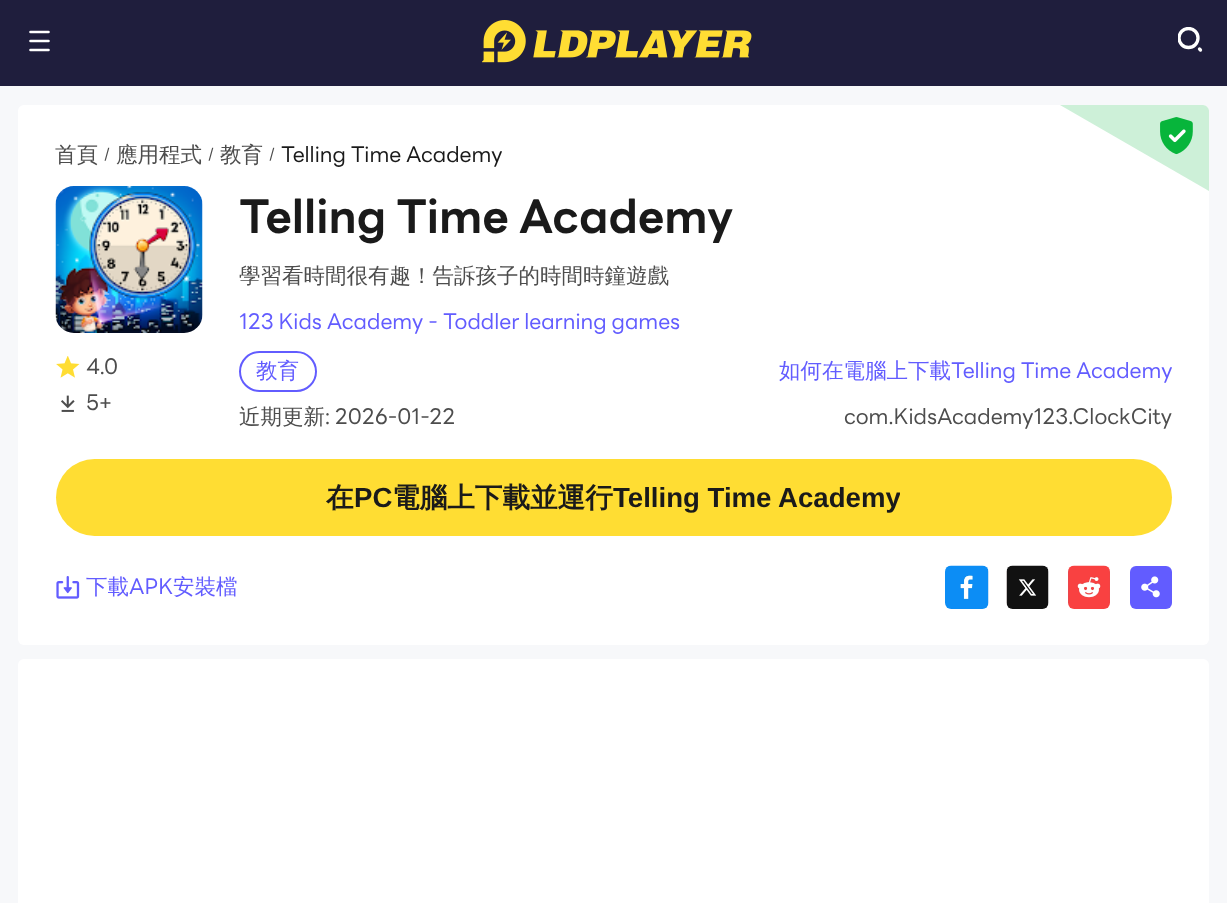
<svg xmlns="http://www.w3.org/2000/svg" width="1227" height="903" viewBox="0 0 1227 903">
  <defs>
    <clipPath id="clip1"><path d="M1178 27h25v26H1178z"/></clipPath>
    <clipPath id="clip2"><path d="M327 479h573v37H327z"/></clipPath>
  </defs>
  <rect width="100%" height="100%" fill="#f7f8fa"/>
  <path d="M0 0h1227v86H0z" fill="#1f1e3d"/>
  <path d="M30.5 32H48.5M30.5 41H48.5M30.5 50H48.5" fill="none" stroke="#fff" stroke-width="2.6" stroke-linecap="round" stroke-linejoin="round"/>
  <image x="482" y="20" width="270" height="43" href="img/1.png"/>
  <g clip-path="url(#clip1)">
    <circle cx="1188.5" cy="38" r="9.5" fill="none" stroke="#fff" stroke-width="3.3"/>
  </g>
  <path d="M1200.5 50L1199.5 49" fill="none" stroke="#fff" stroke-width="3.3" stroke-linecap="round" stroke-linejoin="round"/>
  <rect x="18" y="105" width="1191" height="540" rx="6" fill="#fff"/>
  <path d="M1209 191V111C1209 108 1206 105 1203 105H1060Z" fill="#cdf0d8"/>
  <image x="1160" y="117" width="33" height="38" href="img/2.png"/>
  <image x="55" y="186" width="148" height="147" href="img/3.png"/>
  <image x="56" y="356" width="24" height="22" href="img/4.png"/>
  <image x="61" y="395" width="14" height="17" href="img/5.png"/>
  <rect x="240" y="352" width="76" height="39" rx="19.5" fill="none" stroke="#625cff" stroke-width="2"/>
  <rect x="56" y="459" width="1116" height="77" rx="38.5" fill="#fd3"/>
  <image x="56" y="576" width="24" height="23" href="img/6.png"/>
  <image x="945" y="565" width="44" height="44" href="img/7.png"/>
  <image x="1006" y="565" width="43" height="44" href="img/8.png"/>
  <image x="1068" y="565" width="42" height="44" href="img/9.png"/>
  <rect x="1130" y="566" width="42" height="43" rx="6" fill="#625cff"/>
  <image x="1141" y="576" width="19" height="22" href="img/10.png"/>
  <rect x="18" y="659" width="1191" height="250" rx="6" fill="#fff"/>
  <text x="55" y="162" font-family="WenQuanYi Zen Hei" font-size="21.5" font-weight="500" fill="#4d4d4d">首頁</text>
  <text x="104" y="159" font-family="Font" font-size="15" fill="#4d4d4d">/</text>
  <text x="116" y="162" font-family="WenQuanYi Zen Hei" font-size="21.5" font-weight="500" fill="#4d4d4d">應用程式</text>
  <text x="208" y="159" font-family="Font" font-size="15" fill="#4d4d4d">/</text>
  <text x="220" y="162" font-family="WenQuanYi Zen Hei" font-size="21.5" font-weight="500" fill="#4d4d4d">教育</text>
  <text x="269" y="159" font-family="Font" font-size="15" fill="#4d4d4d">/</text>
  <text x="281" y="162" font-family="Font" font-size="21.5" fill="#1a1a1a">Telling Time Academy</text>
  <g font-family="Font" font-size="21.5" fill="#4d4d4d">
    <text x="86" y="374">4.0</text>
    <text x="86" y="410">5+</text>
  </g>
  <text x="239" y="233" font-family="Font" font-size="46" font-weight="bold" fill="#1a1a1a">Telling Time Academy</text>
  <text x="239" y="283" font-family="WenQuanYi Zen Hei" font-size="21.5" font-weight="500" fill="#4d4d4d">學習看時間很有趣！告訴孩子的時間時鐘遊戲</text>
  <text x="239" y="329" font-family="Font" font-size="21.5" fill="#625cff">123 Kids Academy - Toddler learning games</text>
  <g font-family="WenQuanYi Zen Hei" font-size="21.5" font-weight="500" fill="#625cff">
    <text x="256" y="378">教育</text>
    <text x="779" y="378">如何在電腦上下載</text>
  </g>
  <text x="951" y="378" font-family="Font" font-size="21.5" fill="#625cff">Telling Time Academy</text>
  <text x="239" y="424" font-family="WenQuanYi Zen Hei" font-size="21.5" font-weight="500" fill="#4d4d4d">近期更新</text>
  <g font-family="Font" font-size="21.5" fill="#4d4d4d">
    <text x="325" y="424">: 2026-01-22</text>
    <text x="844" y="424">com.KidsAcademy123.ClockCity</text>
  </g>
  <text x="326" y="507" font-family="WenQuanYi Zen Hei" font-size="27.6" font-weight="bold" fill="#1a1a1a">在</text>
  <text x="354" y="507" font-family="Liberation Sans" font-size="27.6" font-weight="bold" fill="#1a1a1a">PC</text>
  <text x="392" y="507" font-family="WenQuanYi Zen Hei" font-size="27.6" font-weight="bold" fill="#1a1a1a">電腦上下載並運行</text>
  <g clip-path="url(#clip2)">
    <text x="613" y="507" font-family="Liberation Sans" font-size="27.6" font-weight="bold" fill="#1a1a1a">Telling Time Academy</text>
  </g>
  <text x="86" y="594" font-family="WenQuanYi Zen Hei" font-size="21.5" font-weight="500" fill="#625cff">下載</text>
  <text x="129" y="594" font-family="Font" font-size="21.5" fill="#625cff">APK</text>
  <text x="173" y="594" font-family="WenQuanYi Zen Hei" font-size="21.5" font-weight="500" fill="#625cff">安裝檔</text>
</svg>
